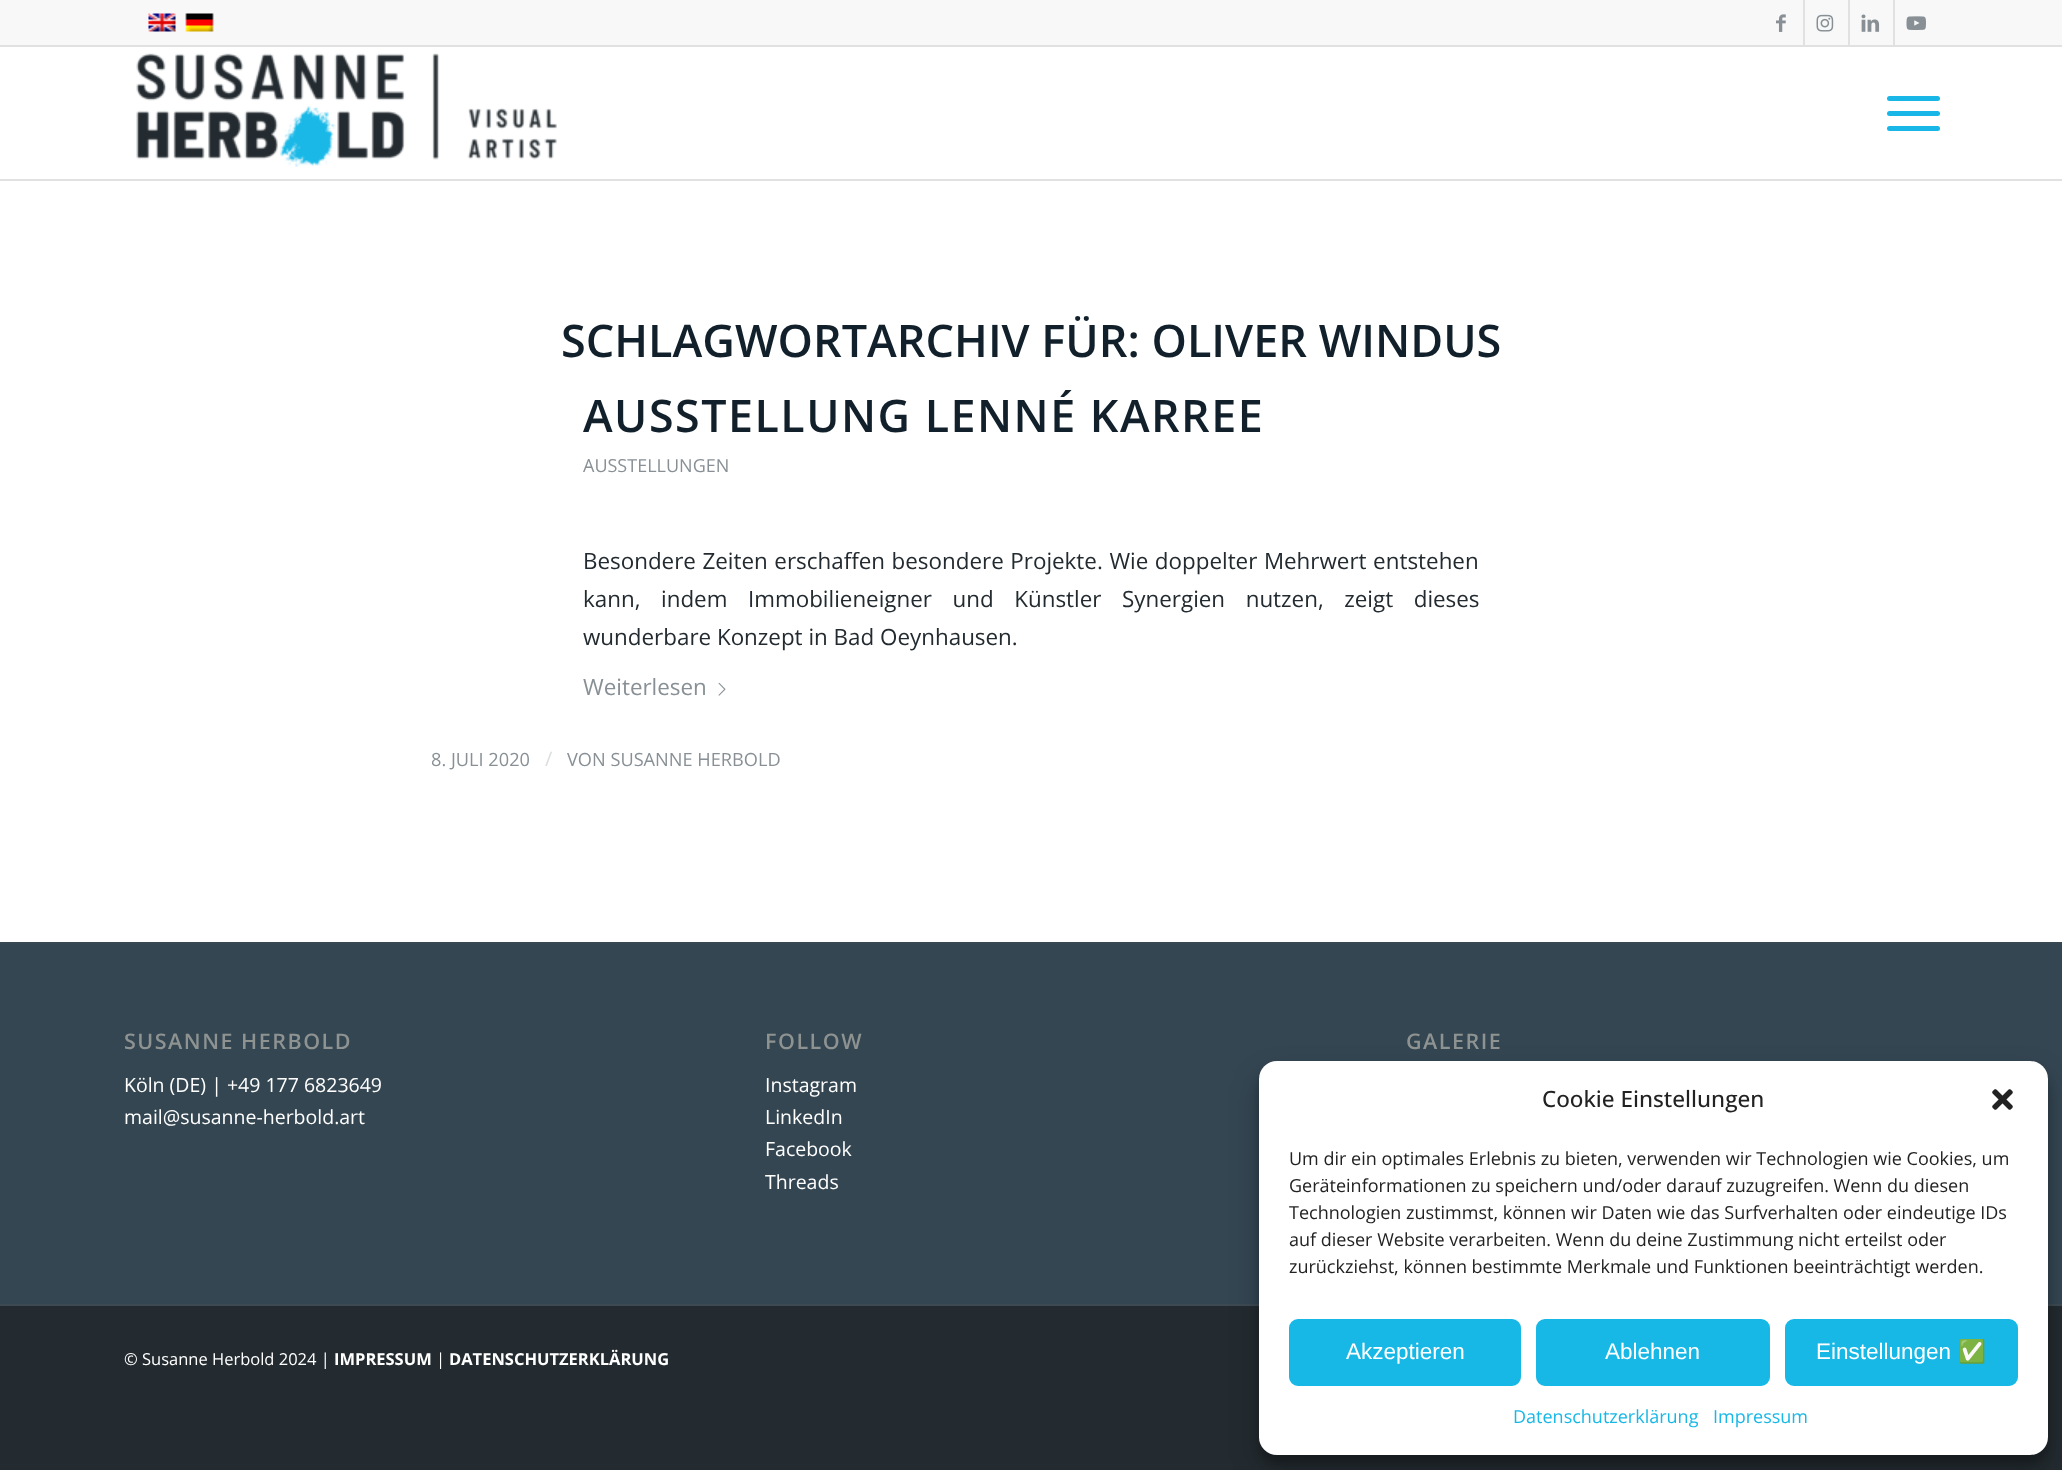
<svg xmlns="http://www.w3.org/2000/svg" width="2062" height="1470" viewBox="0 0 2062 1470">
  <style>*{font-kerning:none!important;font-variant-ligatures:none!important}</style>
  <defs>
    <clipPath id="clip1"><path d="M125 1011h531v140H125z"/></clipPath>
  </defs>
  <rect width="100%" height="100%" fill="#232b30"/>
  <path d="M0 181h2062v761H0z" fill="#fff"/>
  <path d="M0 47h2062v132H0z" fill="#fff"/>
  <path d="M0 0h2062v45H0z" fill="#f8f8f8"/>
  <path d="M0 45h2062v2H0z" fill="#e1e1e1"/>
  <image x="148" y="13" width="28" height="19" href="img/1.png"/>
  <image x="185" y="13" width="29" height="19" href="img/2.png"/>
  <path d="M1803 0h2v45H1803z" fill="#e1e1e1"/>
  <image x="1776" y="14" width="10" height="18" href="img/3.png"/>
  <path d="M1848 0h2v45H1848z" fill="#e1e1e1"/>
  <image x="1816" y="14" width="18" height="18" href="img/4.png"/>
  <path d="M1893 0h2v45H1893z" fill="#e1e1e1"/>
  <image x="1861" y="14" width="19" height="18" href="img/5.png"/>
  <image x="1906" y="16" width="20" height="14" href="img/6.png"/>
  <path d="M0 179h2062v2H0z" fill="#e1e1e1"/>
  <image x="136" y="53" width="421" height="114" href="img/7.png"/>
  <rect x="1887" y="111" width="53" height="5" rx="2.5" fill="#19b7e7"/>
  <rect x="1887" y="96" width="53" height="5" rx="2.5" fill="#19b7e7"/>
  <rect x="1887" y="126" width="53" height="5" rx="2.5" fill="#19b7e7"/>
  <image x="718" y="682" width="8" height="14" href="img/8.png"/>
  <path d="M0 944h2062v360H0z" fill="#344652"/>
  <path d="M0 942h2062v2H0z" fill="#384852"/>
  <path d="M0 1304h2062v2H0z" fill="#3e4a52"/>
  <rect x="1259" y="1070" width="789" height="394" rx="18" fill="#0000003b" filter="blur(4.5px)"/>
  <rect x="1259" y="1076" width="789" height="394" rx="18" fill="#00000030" filter="blur(15px)"/>
  <rect x="1259" y="1061" width="789" height="394" rx="18" fill="#fff"/>
  <image x="1992" y="1089" width="21" height="21" href="img/9.png"/>
  <rect x="1290" y="1320" width="230" height="65" rx="8" fill="#17b8e6" stroke="#17b8e6" stroke-width="2"/>
  <rect x="1537" y="1320" width="232" height="65" rx="8" fill="#17b8e6" stroke="#17b8e6" stroke-width="2"/>
  <rect x="1786" y="1320" width="231" height="65" rx="8" fill="#17b8e6" stroke="#17b8e6" stroke-width="2"/>
  <text x="561" y="357" font-family="Open Sans" font-size="45" font-weight="600" fill="#11202a">SCHLAGWORTARCHIV FÜR: OLIVER WINDUS</text>
  <text x="583" y="432" font-family="Open Sans" font-size="44.8" font-weight="600" letter-spacing="1.5" fill="#11202a">AUSSTELLUNG LENNÉ KARREE</text>
  <text x="583" y="472" font-family="Open Sans" font-size="18" fill="#889095">AUSSTELLUNGEN</text>
  <g font-family="Open Sans" font-size="22.4" fill="#232b30">
    <text x="583" y="569" word-spacing="0.75">Besondere Zeiten erschaffen besondere Projekte. Wie doppelter Mehrwert entstehen</text>
    <text x="583" y="607" word-spacing="14.75">kann, indem Immobilieneigner und Künstler Synergien nutzen, zeigt dieses</text>
    <text x="583" y="645">wunderbare Konzept in Bad Oeynhausen.</text>
  </g>
  <text x="583" y="695" font-family="Open Sans" font-size="22.4" fill="#889095">Weiterlesen</text>
  <text x="431" y="766" font-family="Open Sans" font-size="18.2" fill="#889095">8. JULI 2020</text>
  <text x="545" y="766" font-family="Open Sans" font-size="20" fill="#dbdedf">/</text>
  <text x="567" y="766" font-family="Open Sans" font-size="18.2" fill="#889095">VON SUSANNE HERBOLD</text>
  <g clip-path="url(#clip1)">
    <text x="124" y="1049" font-family="Open Sans" font-size="21.5" font-weight="600" letter-spacing="1.5" fill="#8e9392">SUSANNE HERBOLD</text>
  </g>
  <g font-family="Open Sans" font-size="19.5" fill="#fff">
    <text x="124" y="1092">Köln (DE) | +49 177 6823649</text>
    <text x="124" y="1124">mail@susanne-herbold.art</text>
  </g>
  <text x="765" y="1049" font-family="Open Sans" font-size="21.5" font-weight="600" letter-spacing="1.5" fill="#8e9392">FOLLOW</text>
  <g font-family="Open Sans" font-size="19.5" fill="#fff">
    <text x="765" y="1092">Instagram</text>
    <text x="765" y="1124">LinkedIn</text>
    <text x="765" y="1156">Facebook</text>
    <text x="765" y="1189">Threads</text>
  </g>
  <text x="1406" y="1049" font-family="Open Sans" font-size="21.5" font-weight="600" letter-spacing="1.5" fill="#8e9392">GALERIE</text>
  <text x="124" y="1365" font-family="Open Sans" font-size="16.5" fill="#fff">© Susanne Herbold 2024 |</text>
  <text x="334" y="1365" font-family="Open Sans" font-size="16.5" font-weight="bold" fill="#fff">IMPRESSUM</text>
  <text x="436" y="1365" font-family="Open Sans" font-size="16.5" fill="#fff">|</text>
  <text x="449" y="1365" font-family="Open Sans" font-size="16.5" font-weight="bold" fill="#fff">DATENSCHUTZERKLÄRUNG</text>
  <text x="1542" y="1107" font-family="Open Sans" font-size="22.5" font-weight="500" fill="#222">Cookie Einstellungen</text>
  <g font-family="Open Sans" font-size="18" fill="#222">
    <text x="1289" y="1165">Um dir ein optimales Erlebnis zu bieten, verwenden wir Technologien wie Cookies, um</text>
    <text x="1289" y="1192">Geräteinformationen zu speichern und/oder darauf zuzugreifen. Wenn du diesen</text>
    <text x="1289" y="1219">Technologien zustimmst, können wir Daten wie das Surfverhalten oder eindeutige IDs</text>
    <text x="1289" y="1246">auf dieser Website verarbeiten. Wenn du deine Zustimmung nicht erteilst oder</text>
    <text x="1289" y="1273">zurückziehst, können bestimmte Merkmale und Funktionen beeinträchtigt werden.</text>
  </g>
  <g font-family="Liberation Sans" font-size="22.5" fill="#fff">
    <text x="1346" y="1359">Akzeptieren</text>
    <text x="1605" y="1359">Ablehnen</text>
    <text x="1816" y="1359">Einstellungen</text>
  </g>
  <text x="1958" y="1359" font-family="Noto Color Emoji" font-size="22.5" fill="#fff">✅</text>
  <g font-family="Open Sans" font-size="18" fill="#17b8e6">
    <text x="1513" y="1423">Datenschutzerklärung</text>
    <text x="1713" y="1423">Impressum</text>
  </g>
</svg>
